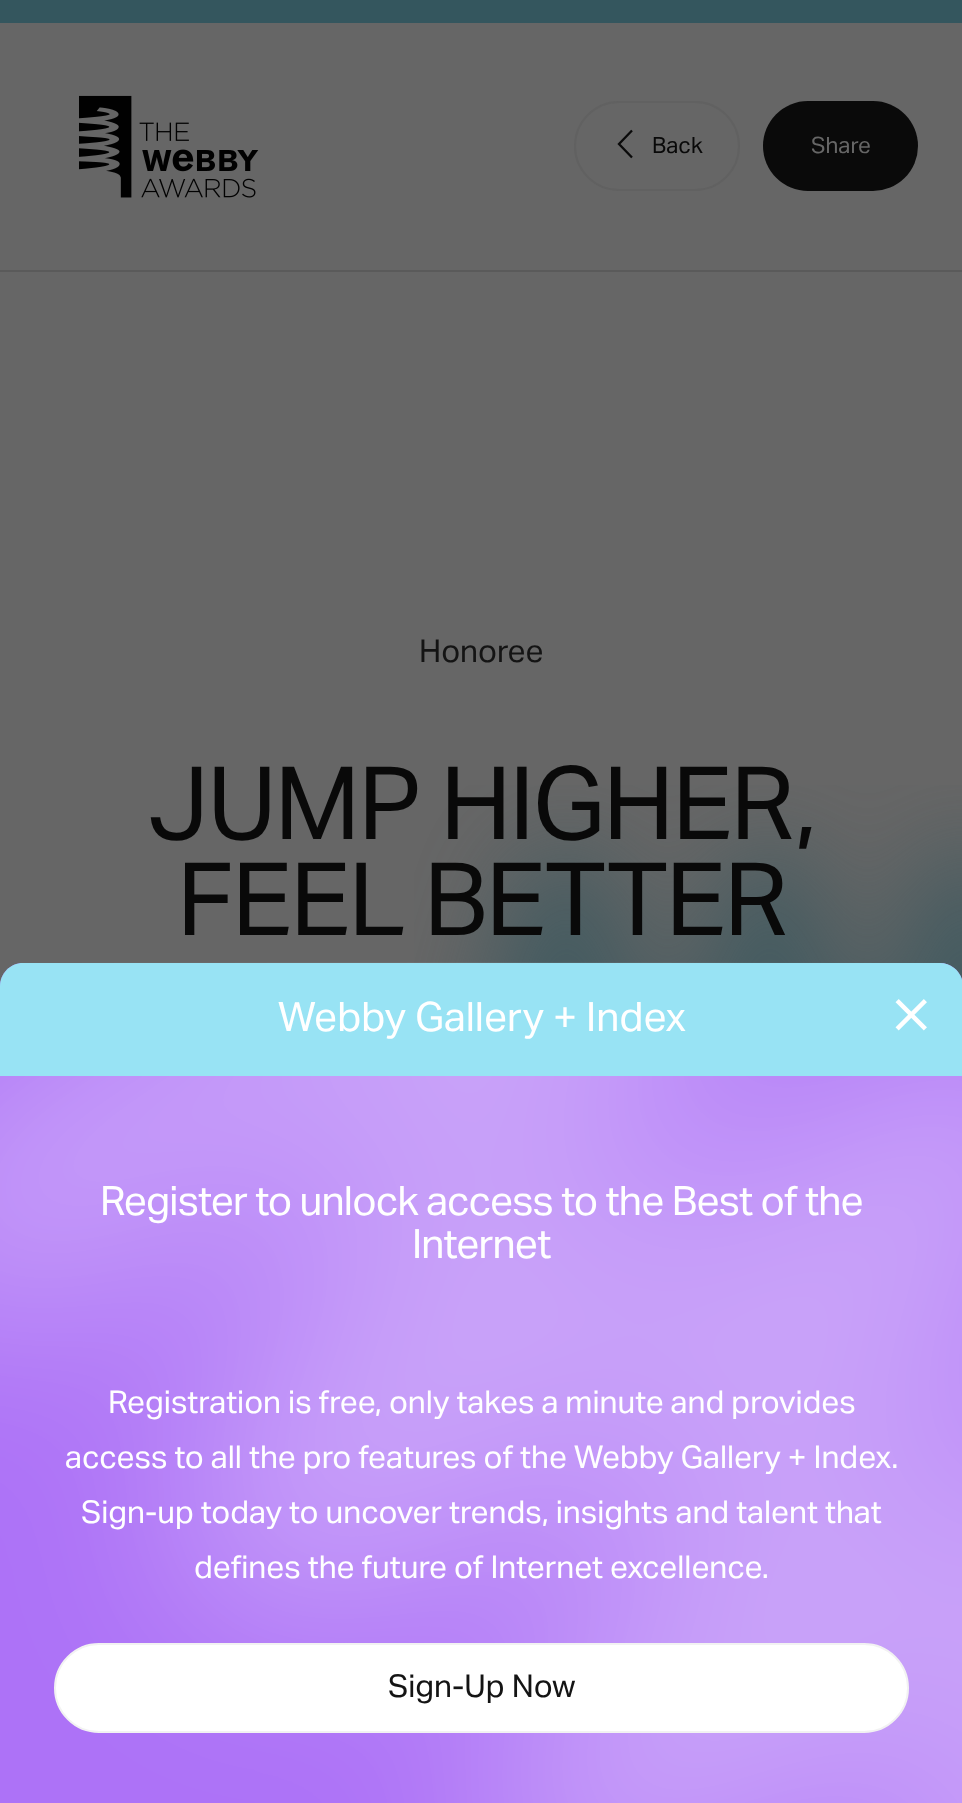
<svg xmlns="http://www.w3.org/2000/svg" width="962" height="1803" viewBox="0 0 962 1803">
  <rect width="100%" height="100%" fill="#666"/>
  <path d="M0 0h962v23H0z" fill="#34565e"/>
  <path d="M0 270h962v2H0z" fill="#5a5a5a"/>
  <image x="79" y="95" width="180" height="103" href="img/1.png"/>
  <rect x="575" y="102" width="164" height="88" rx="44" fill="none" stroke="#616161" stroke-width="2"/>
  <path d="M632 157.5L619 144L632 130.5" fill="none" stroke="#0a0a0a" stroke-width="2.3"/>
  <rect x="763" y="101" width="155" height="90" rx="45" fill="#0a0a0a"/>
  <image x="414" y="785" width="548" height="195" href="img/2.png"/>
  <path d="M23 963H940C952.5 963 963 973.5 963 986V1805H0V986C0 973.5 10.5 963 23 963Z" fill="#ad72f7"/>
  <image x="0" y="962" width="962" height="841" href="img/3.png"/>
  <path d="M23 963H940C952.5 963 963 973.5 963 986V1076H0V986C0 973.5 10.5 963 23 963Z" fill="#98e3f4"/>
  <image x="895" y="999" width="32" height="32" href="img/4.png"/>
  <rect x="55" y="1644" width="853" height="88" rx="44" fill="#fff" stroke="#f2f2f2" stroke-width="2"/>
  <text x="652" y="153" font-family="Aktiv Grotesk" font-size="22.5" fill="#090909">Back</text>
  <text x="811" y="153" font-family="Aktiv Grotesk" font-size="22.5" fill="#666">Share</text>
  <text x="419" y="662" font-family="Aktiv Grotesk" font-size="31.5" fill="#141414">Honoree</text>
  <g font-family="Aktiv Grotesk" font-size="101.25" letter-spacing="-2" fill="#090909">
    <text x="148" y="839">JUMP HIGHER,</text>
    <text x="177" y="935">FEEL BETTER</text>
  </g>
  <text x="278" y="1031" font-family="Aktiv Grotesk" font-size="40.5" fill="#fff">Webby Gallery + Index</text>
  <g font-family="Aktiv Grotesk" font-size="40.5" letter-spacing="-0.8" fill="#fff">
    <text x="100" y="1215">Register to unlock access to the Best of the</text>
    <text x="412" y="1258">Internet</text>
  </g>
  <g font-family="Aktiv Grotesk" font-size="31.5" fill="#fff">
    <text x="108" y="1413">Registration is free, only takes a minute and provides</text>
    <text x="65" y="1468">access to all the pro features of the Webby Gallery + Index.</text>
    <text x="81" y="1523">Sign-up today to uncover trends, insights and talent that</text>
    <text x="194" y="1578">defines the future of Internet excellence.</text>
  </g>
  <text x="388" y="1697" font-family="Aktiv Grotesk" font-size="31.5" fill="#141414">Sign-Up Now</text>
</svg>
